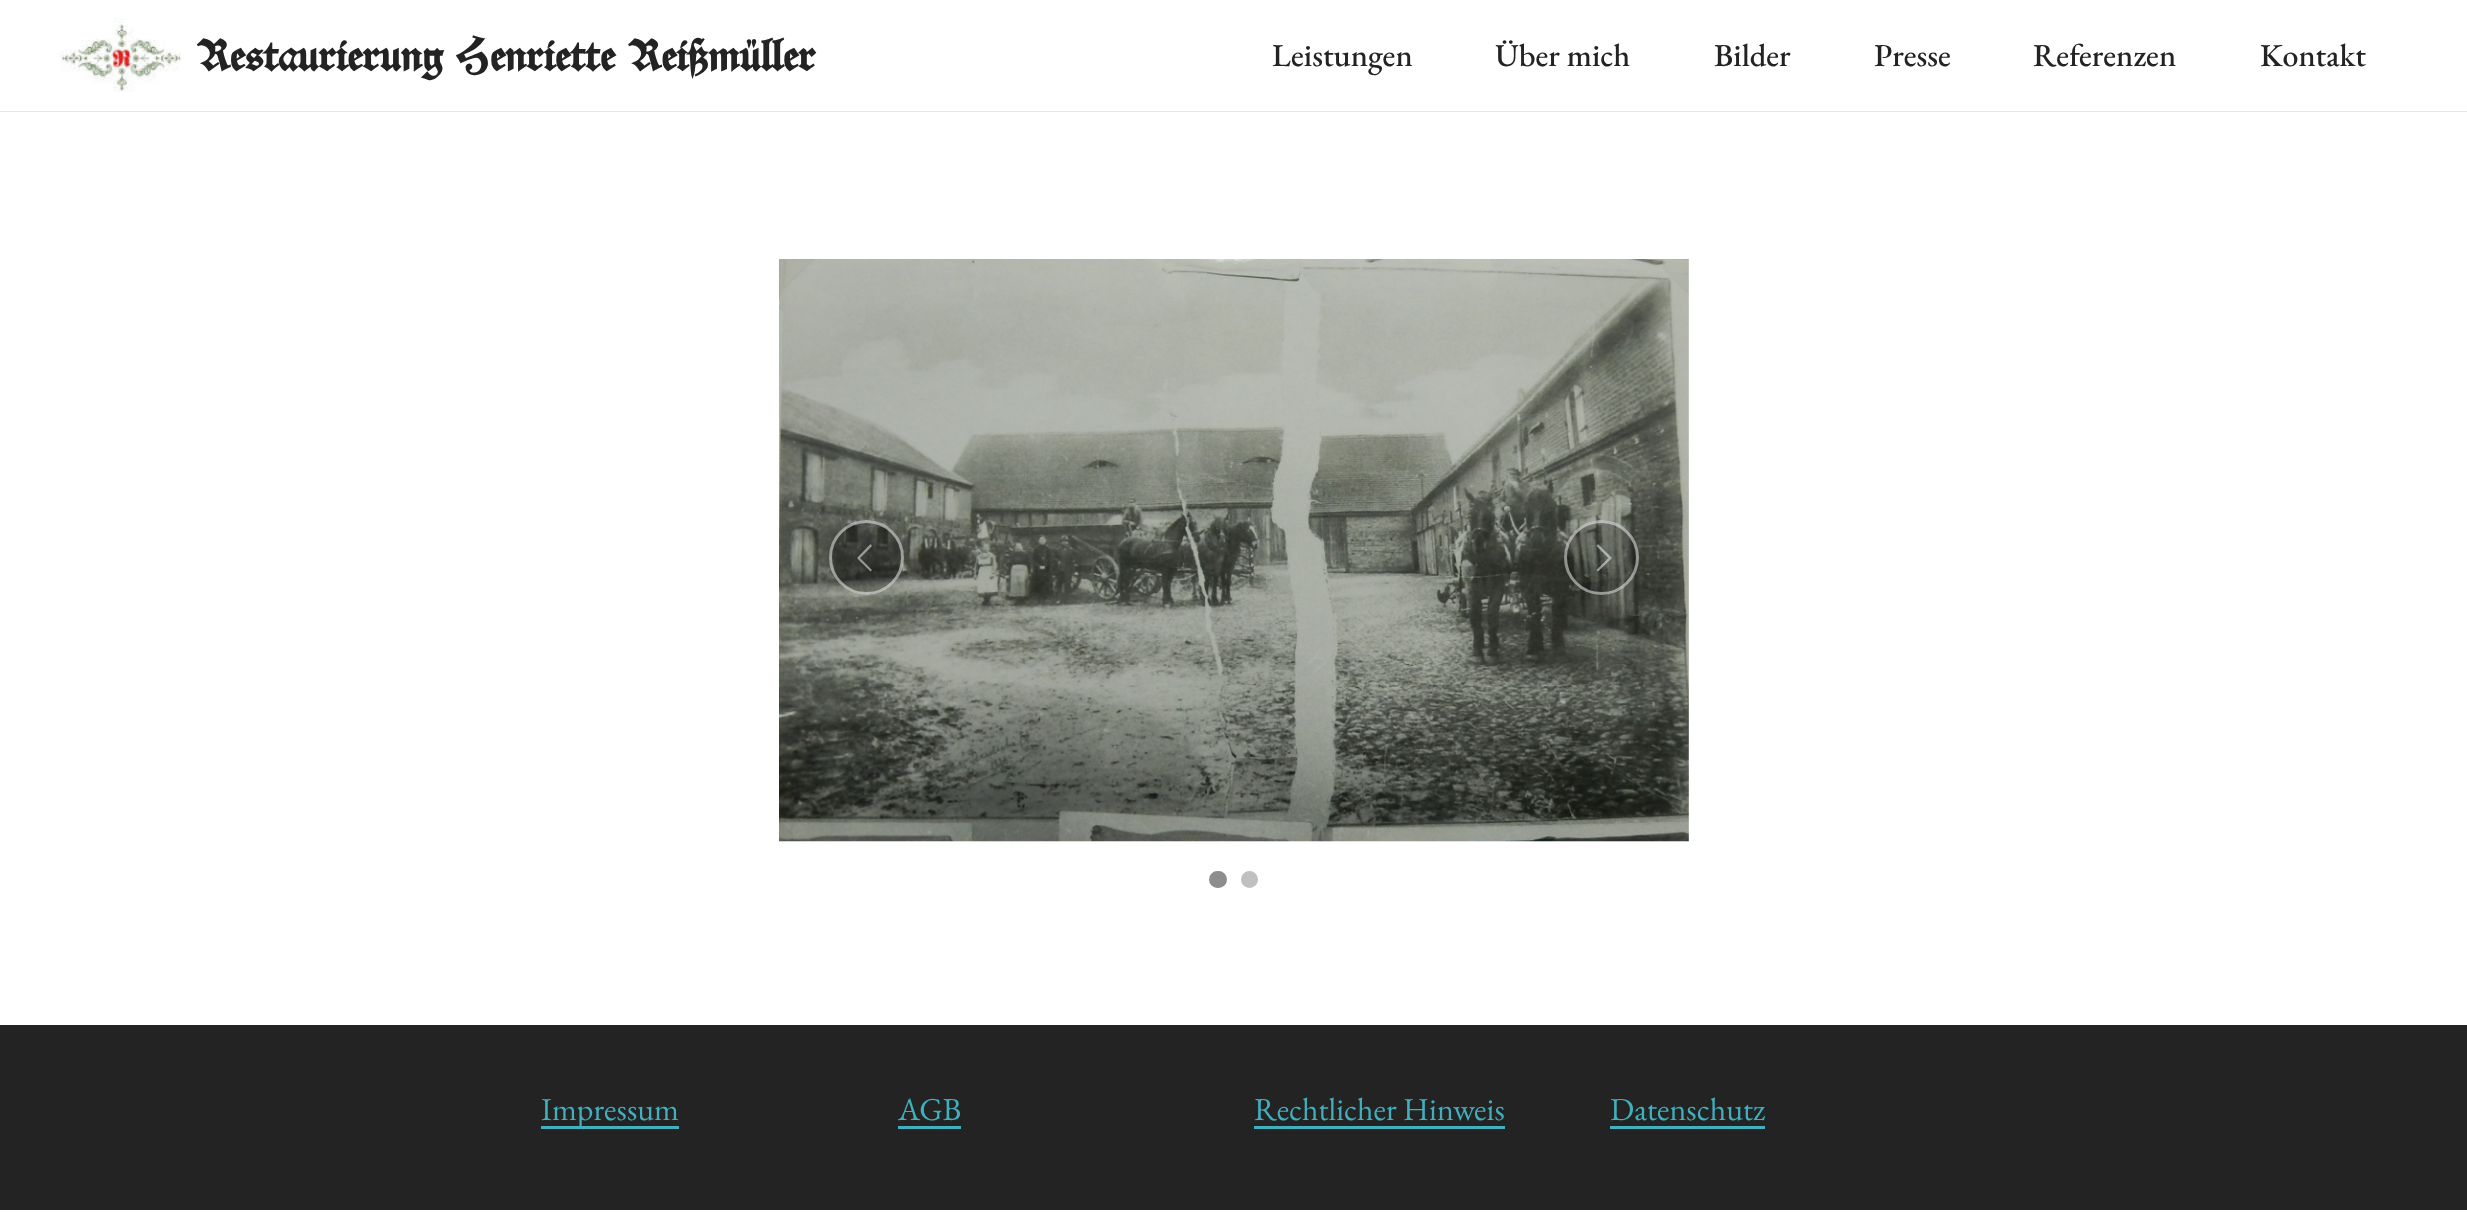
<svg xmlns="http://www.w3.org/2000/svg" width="2467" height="1213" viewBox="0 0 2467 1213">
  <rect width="100%" height="100%" fill="#fff"/>
  <path d="M0 111h2467v1H0z" fill="#e6e6e6"/>
  <image x="60" y="17" width="122" height="75" href="img/1.png"/>
  <image x="779" y="259" width="910" height="583" href="img/2.png"/>
  <circle cx="866.5" cy="557.5" r="37.5" fill="#00000040"/>
  <circle cx="866.5" cy="557.5" r="36" fill="none" stroke="#ffffff80" stroke-width="3"/>
  <path d="M872 546L860 558L872 570L870.5 571.5L857 558L870.5 544Z" fill="#ffffff80"/>
  <circle cx="1601.5" cy="557.5" r="37.5" fill="#00000040"/>
  <circle cx="1601.5" cy="557.5" r="36" fill="none" stroke="#ffffff80" stroke-width="3"/>
  <path d="M1596.5 570L1608.5 558L1596.5 546L1598 544L1612 558L1598 571.5Z" fill="#ffffff80"/>
  <rect x="1207.5" y="869.5" width="21" height="20" rx="10" fill="#8d8d8d" stroke="#fff" stroke-width="3"/>
  <circle cx="1249.5" cy="879.5" r="10" fill="#c0c0c0" stroke="#fff" stroke-width="3"/>
  <path d="M0 1025h2467v185H0z" fill="#232323"/>
  <path d="M541 1126h138v3H541z" fill="#40b0bf"/>
  <path d="M898 1126h63v3H898z" fill="#40b0bf"/>
  <path d="M1254 1126h251v3H1254z" fill="#40b0bf"/>
  <path d="M1610 1126h155v3H1610z" fill="#40b0bf"/>
  <text x="197" y="71" font-family="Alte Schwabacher" font-size="44" font-weight="bold" fill="#232323">Restaurierung Henriette Reißmüller</text>
  <g font-family="EB Garamond" font-size="32" font-weight="500" fill="#232323">
    <text x="1272" y="66">Leistungen</text>
    <text x="1495" y="66">Über mich</text>
    <text x="1714" y="66">Bilder</text>
    <text x="1874" y="66">Presse</text>
    <text x="2033" y="66">Referenzen</text>
    <text x="2260" y="66">Kontakt</text>
  </g>
  <g font-family="EB Garamond" font-size="32" fill="#40b0bf">
    <text x="541" y="1120">Impressum</text>
    <text x="898" y="1120">AGB</text>
    <text x="1254" y="1120">Rechtlicher Hinweis</text>
    <text x="1610" y="1120">Datenschutz</text>
  </g>
</svg>
